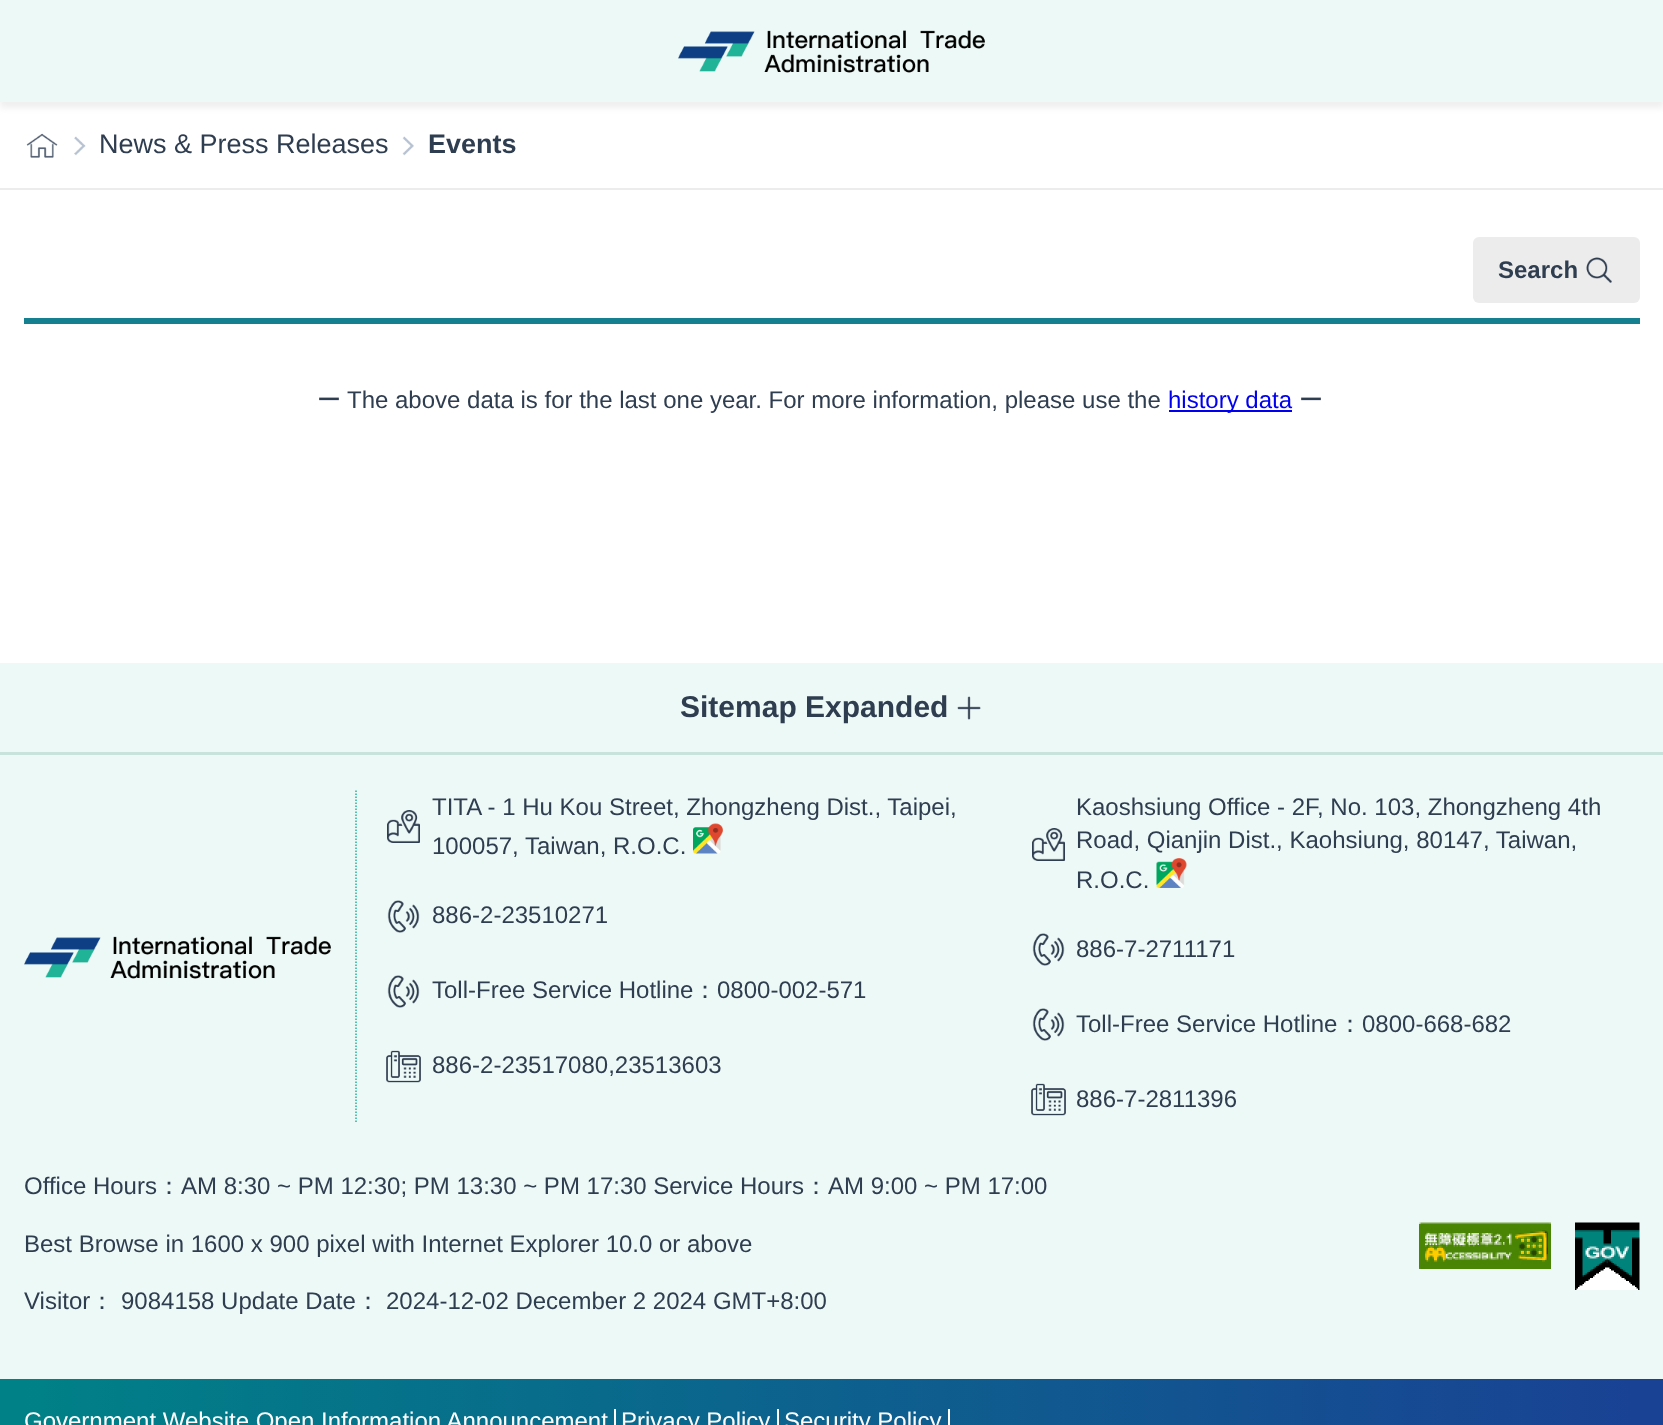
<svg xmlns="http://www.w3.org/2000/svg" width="1663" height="1425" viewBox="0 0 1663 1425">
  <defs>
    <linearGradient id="g1" gradientUnits="userSpaceOnUse" x1="0" y1="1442" x2="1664" y2="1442"><stop offset="0.01" stop-color="#008187"/><stop offset="0.98" stop-color="#194294"/></linearGradient>
  </defs>
  <rect width="100%" height="100%" fill="#fff"/>
  <path d="M0 6h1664v102H0z" fill="#c1c1c140" filter="blur(3px)"/>
  <path d="M0 0h1663v102H0z" fill="#edf9f6"/>
  <image x="678" y="30" width="307" height="43" href="img/1.png"/>
  <path d="M0 188h1663v2H0z" fill="#ececec"/>
  <image x="26" y="133" width="32" height="25" href="img/2.png"/>
  <image x="74" y="136" width="12" height="20" href="img/3.png"/>
  <image x="402" y="136" width="12" height="20" href="img/4.png"/>
  <rect x="1473" y="237" width="167" height="66" rx="6" fill="#ececec"/>
  <image x="1586" y="257" width="26" height="26" href="img/5.png"/>
  <path d="M24 318h1616v6H24z" fill="#15808f"/>
  <path d="M1169 410h123v2H1169z" fill="#00e"/>
  <path d="M0 663h1663v89H0z" fill="#edf9f6"/>
  <path d="M0 752h1663v3H0z" fill="#c7e3dc"/>
  <image x="957" y="696" width="24" height="24" href="img/6.png"/>
  <path d="M0 755h1663v624H0z" fill="#edf9f6"/>
  <image x="24" y="936" width="307" height="43" href="img/1.png"/>
  <path d="M356 790.5V1122" fill="none" stroke="#20b398" stroke-width="1.5" stroke-dasharray="1.5 1.5"/>
  <image x="387" y="810" width="33" height="33" href="img/7.png"/>
  <image x="693" y="823" width="30" height="31" href="img/8.png"/>
  <image x="387" y="900" width="33" height="33" href="img/9.png"/>
  <image x="387" y="975" width="33" height="33" href="img/9.png"/>
  <image x="386" y="1050" width="35" height="33" href="img/10.png"/>
  <image x="1032" y="828" width="33" height="33" href="img/11.png"/>
  <image x="1156" y="858" width="31" height="30" href="img/12.png"/>
  <image x="1032" y="933" width="33" height="33" href="img/13.png"/>
  <image x="1032" y="1008" width="33" height="33" href="img/13.png"/>
  <image x="1031" y="1083" width="35" height="33" href="img/14.png"/>
  <image x="1419" y="1222" width="132" height="47" href="img/15.png"/>
  <image x="1575" y="1222" width="65" height="68" href="img/16.png"/>
  <path d="M0 1379h1663v46H0z" fill="url(#g1)"/>
  <path d="M614 1409h2v16H614z" fill="#fff"/>
  <path d="M777 1409h2v16H777z" fill="#fff"/>
  <path d="M948 1409h2v16H948z" fill="#fff"/>
  <text x="99" y="153" font-family="Liberation Sans" font-size="27" fill="#2f3d50">News &amp; Press Releases</text>
  <text x="428" y="153" font-family="Liberation Sans" font-size="27" font-weight="bold" fill="#2f3d50">Events</text>
  <text x="1498" y="278" font-family="Liberation Sans" font-size="24" font-weight="bold" fill="#2f3d50">Search</text>
  <text x="317" y="408" font-family="WenQuanYi Zen Hei" font-size="24" font-weight="500" fill="#2f3d50">ー</text>
  <text x="347" y="408" font-family="Liberation Sans" font-size="24" fill="#2f3d50">The above data is for the last one year. For more information, please use the</text>
  <text x="1168" y="408" font-family="Liberation Sans" font-size="24" fill="#00e">history data</text>
  <text x="1299" y="408" font-family="WenQuanYi Zen Hei" font-size="24" font-weight="500" fill="#2f3d50">ー</text>
  <text x="680" y="717" font-family="Liberation Sans" font-size="30" font-weight="bold" fill="#2f3d50">Sitemap Expanded</text>
  <g font-family="Liberation Sans" font-size="24" fill="#2f3d50">
    <text x="432" y="815">TITA - 1 Hu Kou Street, Zhongzheng Dist., Taipei,</text>
    <text x="432" y="854">100057, Taiwan, R.O.C.</text>
    <text x="432" y="923">886-2-23510271</text>
    <text x="432" y="998">Toll-Free Service Hotline</text>
  </g>
  <text x="693" y="998" font-family="WenQuanYi Zen Hei" font-size="24" font-weight="500" fill="#2f3d50">：</text>
  <g font-family="Liberation Sans" font-size="24" fill="#2f3d50">
    <text x="717" y="998">0800-002-571</text>
    <text x="432" y="1073">886-2-23517080,23513603</text>
    <text x="1076" y="815">Kaoshsiung Office - 2F, No. 103, Zhongzheng 4th</text>
    <text x="1076" y="848">Road, Qianjin Dist., Kaohsiung, 80147, Taiwan,</text>
    <text x="1076" y="888">R.O.C.</text>
    <text x="1076" y="957">886-7-2711171</text>
    <text x="1076" y="1032">Toll-Free Service Hotline</text>
  </g>
  <text x="1338" y="1032" font-family="WenQuanYi Zen Hei" font-size="24" font-weight="500" fill="#2f3d50">：</text>
  <g font-family="Liberation Sans" font-size="24" fill="#2f3d50">
    <text x="1362" y="1032">0800-668-682</text>
    <text x="1076" y="1107">886-7-2811396</text>
    <text x="24" y="1194">Office Hours</text>
  </g>
  <text x="157" y="1194" font-family="WenQuanYi Zen Hei" font-size="24" font-weight="500" fill="#2f3d50">：</text>
  <text x="181" y="1194" font-family="Liberation Sans" font-size="24" fill="#2f3d50">AM 8:30 ~ PM 12:30; PM 13:30 ~ PM 17:30 Service Hours</text>
  <text x="804" y="1194" font-family="WenQuanYi Zen Hei" font-size="24" font-weight="500" fill="#2f3d50">：</text>
  <g font-family="Liberation Sans" font-size="24" fill="#2f3d50">
    <text x="828" y="1194">AM 9:00 ~ PM 17:00</text>
    <text x="24" y="1252">Best Browse in 1600 x 900 pixel with Internet Explorer 10.0 or above</text>
    <text x="24" y="1309">Visitor</text>
  </g>
  <text x="90" y="1309" font-family="WenQuanYi Zen Hei" font-size="24" font-weight="500" fill="#2f3d50">：</text>
  <text x="121" y="1309" font-family="Liberation Sans" font-size="24" fill="#2f3d50">9084158 Update Date</text>
  <text x="356" y="1309" font-family="WenQuanYi Zen Hei" font-size="24" font-weight="500" fill="#2f3d50">：</text>
  <text x="386" y="1309" font-family="Liberation Sans" font-size="24" fill="#2f3d50">2024-12-02 December 2 2024 GMT+8:00</text>
  <g font-family="Liberation Sans" font-size="24" fill="#fff">
    <text x="24" y="1429">Government Website Open Information Announcement</text>
    <text x="621" y="1429">Privacy Policy</text>
    <text x="784" y="1429">Security Policy</text>
  </g>
</svg>
